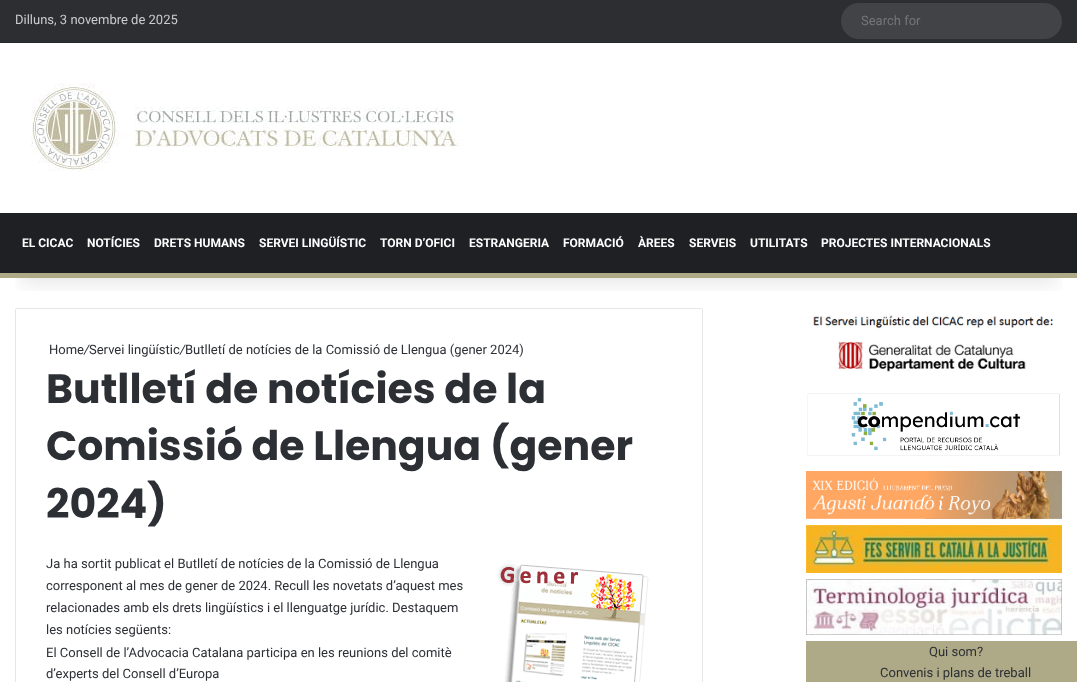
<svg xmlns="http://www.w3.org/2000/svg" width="1077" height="682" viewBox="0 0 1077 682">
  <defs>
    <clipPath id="clip1"><path d="M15 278h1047v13H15z"/></clipPath>
  </defs>
  <rect width="100%" height="100%" fill="#fff"/>
  <rect x="15.5" y="308.5" width="687" height="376" rx="1.5" fill="none" stroke="#e6e6e6"/>
  <g clip-path="url(#clip1)">
    <path d="M20 45h1037v238H20z" fill="#0000001a" filter="blur(10px)"/>
  </g>
  <path d="M0 0h1077v42H0z" fill="#2c2e32"/>
  <path d="M0 42h1077v1H0z" fill="#28292d"/>
  <rect x="841" y="3" width="221" height="36" rx="18" fill="#414347"/>
  <image x="31" y="83" width="432" height="88" href="img/1.png"/>
  <path d="M0 213h1077v60H0z" fill="#1f2024"/>
  <path d="M0 273h1077v5H0z" fill="#aeaa87"/>
  <image x="497" y="563" width="152" height="119" href="img/2.png"/>
  <image x="813" y="315" width="240" height="57" href="img/3.png"/>
  <image x="807" y="393" width="253" height="63" href="img/4.png"/>
  <image x="806" y="471" width="256" height="48" href="img/5.png"/>
  <image x="806" y="525" width="256" height="48" href="img/6.png"/>
  <image x="806" y="579" width="256" height="56" href="img/7.png"/>
  <path d="M806 641h271v41H806z" fill="#aeaa87"/>
  <text x="15" y="24" font-family="Roboto" font-size="13" fill="#ccc">Dilluns, 3 novembre de 2025</text>
  <text x="861" y="25" font-family="Roboto" font-size="13" fill="#757575">Search for</text>
  <g font-family="Roboto" font-size="12" font-weight="bold" fill="#fff">
    <text x="22" y="247">EL CICAC</text>
    <text x="87" y="247">NOTÍCIES</text>
    <text x="154" y="247">DRETS HUMANS</text>
    <text x="259" y="247">SERVEI LINGÜÍSTIC</text>
    <text x="380" y="247">TORN D’OFICI</text>
    <text x="469" y="247">ESTRANGERIA</text>
    <text x="563" y="247">FORMACIÓ</text>
    <text x="638" y="247">ÀREES</text>
    <text x="689" y="247">SERVEIS</text>
    <text x="750" y="247">UTILITATS</text>
    <text x="821" y="247">PROJECTES INTERNACIONALS</text>
  </g>
  <text x="49" y="354" font-family="Roboto" font-size="13" fill="#2c2f34">Home</text>
  <text x="84" y="354" font-family="Roboto" font-size="13" font-style="italic" fill="#2c2f34">/</text>
  <text x="89" y="354" font-family="Roboto" font-size="13" fill="#2c2f34">Servei lingüístic</text>
  <text x="180" y="354" font-family="Roboto" font-size="13" font-style="italic" fill="#2c2f34">/</text>
  <text x="185" y="354" font-family="Roboto" font-size="13" fill="#2c2f34">Butlletí de notícies de la Comissió de Llengua (gener 2024)</text>
  <g font-family="Poppins" font-size="41" font-weight="bold" fill="#2c2f34">
    <text x="46" y="403">Butlletí de notícies de la</text>
    <text x="46" y="460">Comissió de Llengua (gener</text>
    <text x="46" y="518">2024)</text>
  </g>
  <g font-family="Roboto" font-size="13" fill="#2c2f34">
    <text x="46" y="568">Ja ha sortit publicat el Butlletí de notícies de la Comissió de Llengua</text>
    <text x="46" y="590">corresponent al mes de gener de 2024. Recull les novetats d’aquest mes</text>
    <text x="46" y="612">relacionades amb els drets lingüístics i el llenguatge jurídic. Destaquem</text>
    <text x="46" y="634">les notícies següents:</text>
    <text x="46" y="657">El Consell de l’Advocacia Catalana participa en les reunions del comitè</text>
    <text x="46" y="678">d’experts del Consell d’Europa</text>
    <text x="929" y="656">Qui som?</text>
    <text x="880" y="677">Convenis i plans de treball</text>
  </g>
</svg>
